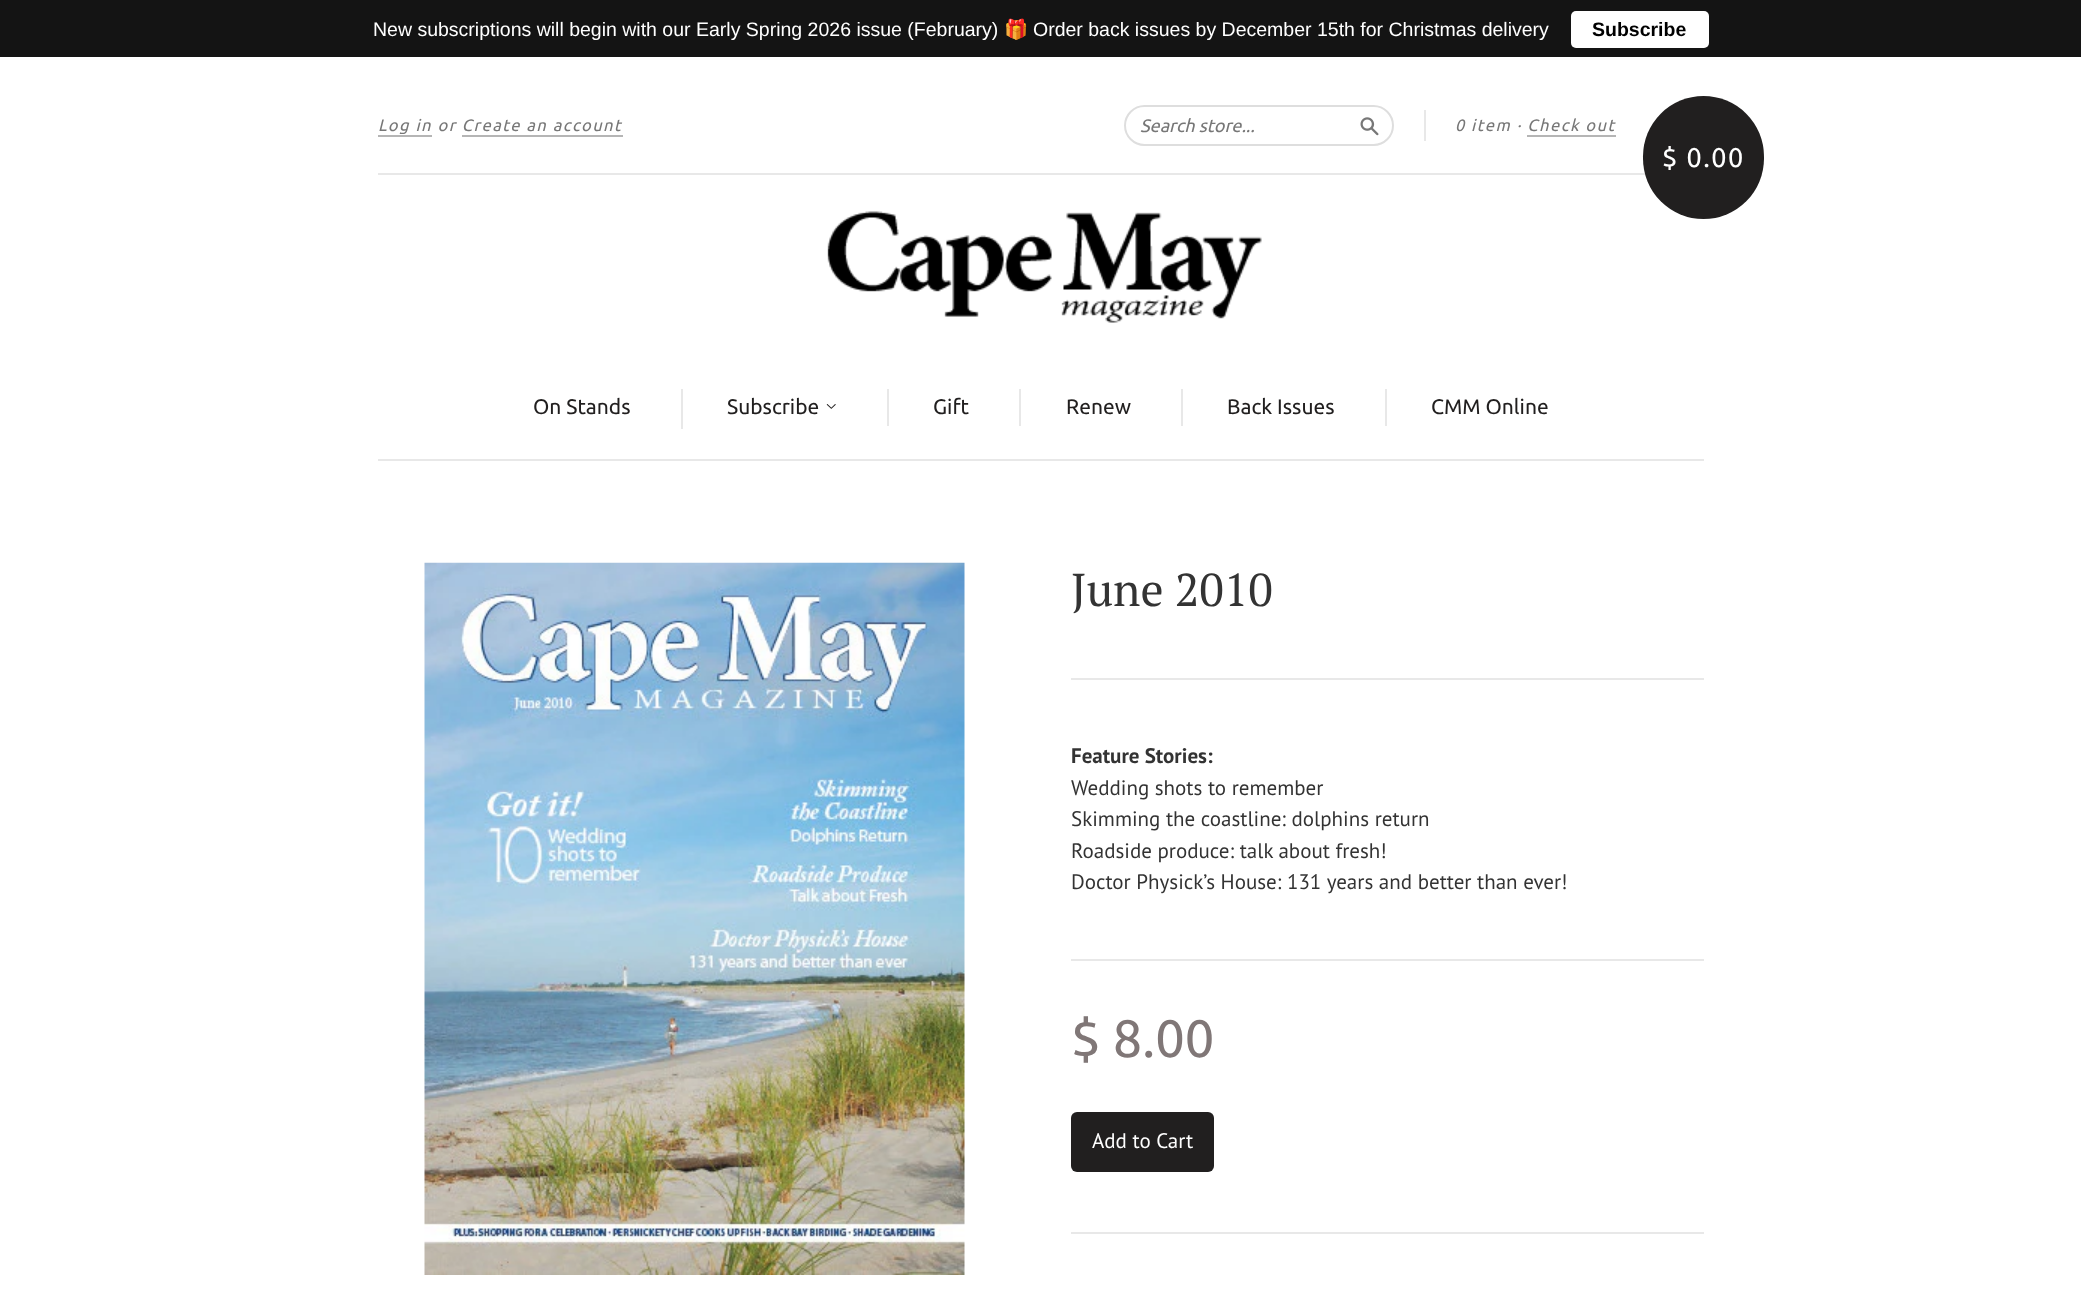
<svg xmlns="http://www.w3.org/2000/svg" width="2081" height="1292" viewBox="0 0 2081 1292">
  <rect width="100%" height="100%" fill="#fff"/>
  <path d="M0 0h2081v57H0z" fill="#141414"/>
  <rect x="1571" y="11" width="138" height="37" rx="5" fill="#fff"/>
  <path d="M378 459h1326v2H378z" fill="#e8e8e8"/>
  <path d="M378 173h1268v2H378z" fill="#e8e8e8"/>
  <path d="M378 135h54v2H378z" fill="#b5b5b5"/>
  <path d="M462 135h161v2H462z" fill="#b5b5b5"/>
  <rect x="1125" y="106" width="268" height="39" rx="19.5" fill="none" stroke="#dedede" stroke-width="2"/>
  <image x="1360" y="117" width="19" height="19" href="img/1.png"/>
  <path d="M1424 110h2v31H1424z" fill="#e8e8e8"/>
  <path d="M1527 135h89v2H1527z" fill="#b5b5b5"/>
  <rect x="1643" y="96" width="121" height="123" rx="60.5" fill="#211f1f"/>
  <image x="827" y="211" width="435" height="112" href="img/2.png"/>
  <path d="M681 389h2v40H681z" fill="#e8e8e8"/>
  <image x="826" y="404" width="10" height="5" href="img/3.png"/>
  <path d="M887 389h2v37H887z" fill="#e8e8e8"/>
  <path d="M1019 389h2v37H1019z" fill="#e8e8e8"/>
  <path d="M1181 389h2v37H1181z" fill="#e8e8e8"/>
  <path d="M1385 389h2v37H1385z" fill="#e8e8e8"/>
  <image x="424" y="562" width="541" height="713" href="img/4.png"/>
  <path d="M1071 678h633v2H1071z" fill="#e8e8e8"/>
  <path d="M1071 959h633v2H1071z" fill="#e8e8e8"/>
  <rect x="1071" y="1112" width="143" height="60" rx="6" fill="#211f1f"/>
  <path d="M1071 1232h633v2H1071z" fill="#e8e8e8"/>
  <text x="373" y="36" font-family="Liberation Sans" font-size="19.5" fill="#fff">New subscriptions will begin with our Early Spring 2026 issue (February)</text>
  <text x="1004" y="36" font-family="Noto Color Emoji" font-size="19.5" fill="#fff">🎁</text>
  <text x="1033" y="36" font-family="Liberation Sans" font-size="19.5" fill="#fff">Order back issues by December 15th for Christmas delivery</text>
  <text x="1592" y="36" font-family="Liberation Sans" font-size="19.5" font-weight="bold" fill="#000">Subscribe</text>
  <text x="378" y="131" font-family="Ubuntu" font-size="16.5" font-style="italic" letter-spacing="1.5" fill="#777">Log in or Create an account</text>
  <text x="1140" y="132" font-family="Ubuntu" font-size="18" font-style="italic" fill="#777">Search store...</text>
  <text x="1455" y="131" font-family="Ubuntu" font-size="16.5" font-style="italic" letter-spacing="1.5" fill="#777">0 item · Check out</text>
  <text x="1662" y="167" font-family="Ubuntu" font-size="27" letter-spacing="1.5" fill="#fff">$ 0.00</text>
  <g font-family="Ubuntu" font-size="21" fill="#211f1f">
    <text x="533" y="414">On Stands</text>
    <text x="727" y="414">Subscribe</text>
    <text x="933" y="414">Gift</text>
    <text x="1066" y="414">Renew</text>
    <text x="1227" y="414">Back Issues</text>
    <text x="1431" y="414">CMM Online</text>
  </g>
  <text x="1071" y="606" font-family="PT Serif" font-size="46" fill="#333">June 2010</text>
  <text x="1071" y="763" font-family="PT Sans" font-size="21" font-weight="bold" fill="#333">Feature Stories:</text>
  <g font-family="PT Sans" font-size="21" fill="#333">
    <text x="1071" y="795">Wedding shots to remember</text>
    <text x="1071" y="826">Skimming the coastline: dolphins return</text>
    <text x="1071" y="858">Roadside produce: talk about fresh!</text>
    <text x="1071" y="889">Doctor Physick’s House: 131 years and better than ever!</text>
  </g>
  <text x="1071" y="1057" font-family="Ubuntu" font-size="52.5" fill="#807777">$ 8.00</text>
  <text x="1092" y="1148" font-family="PT Sans" font-size="21" fill="#fff">Add to Cart</text>
</svg>
